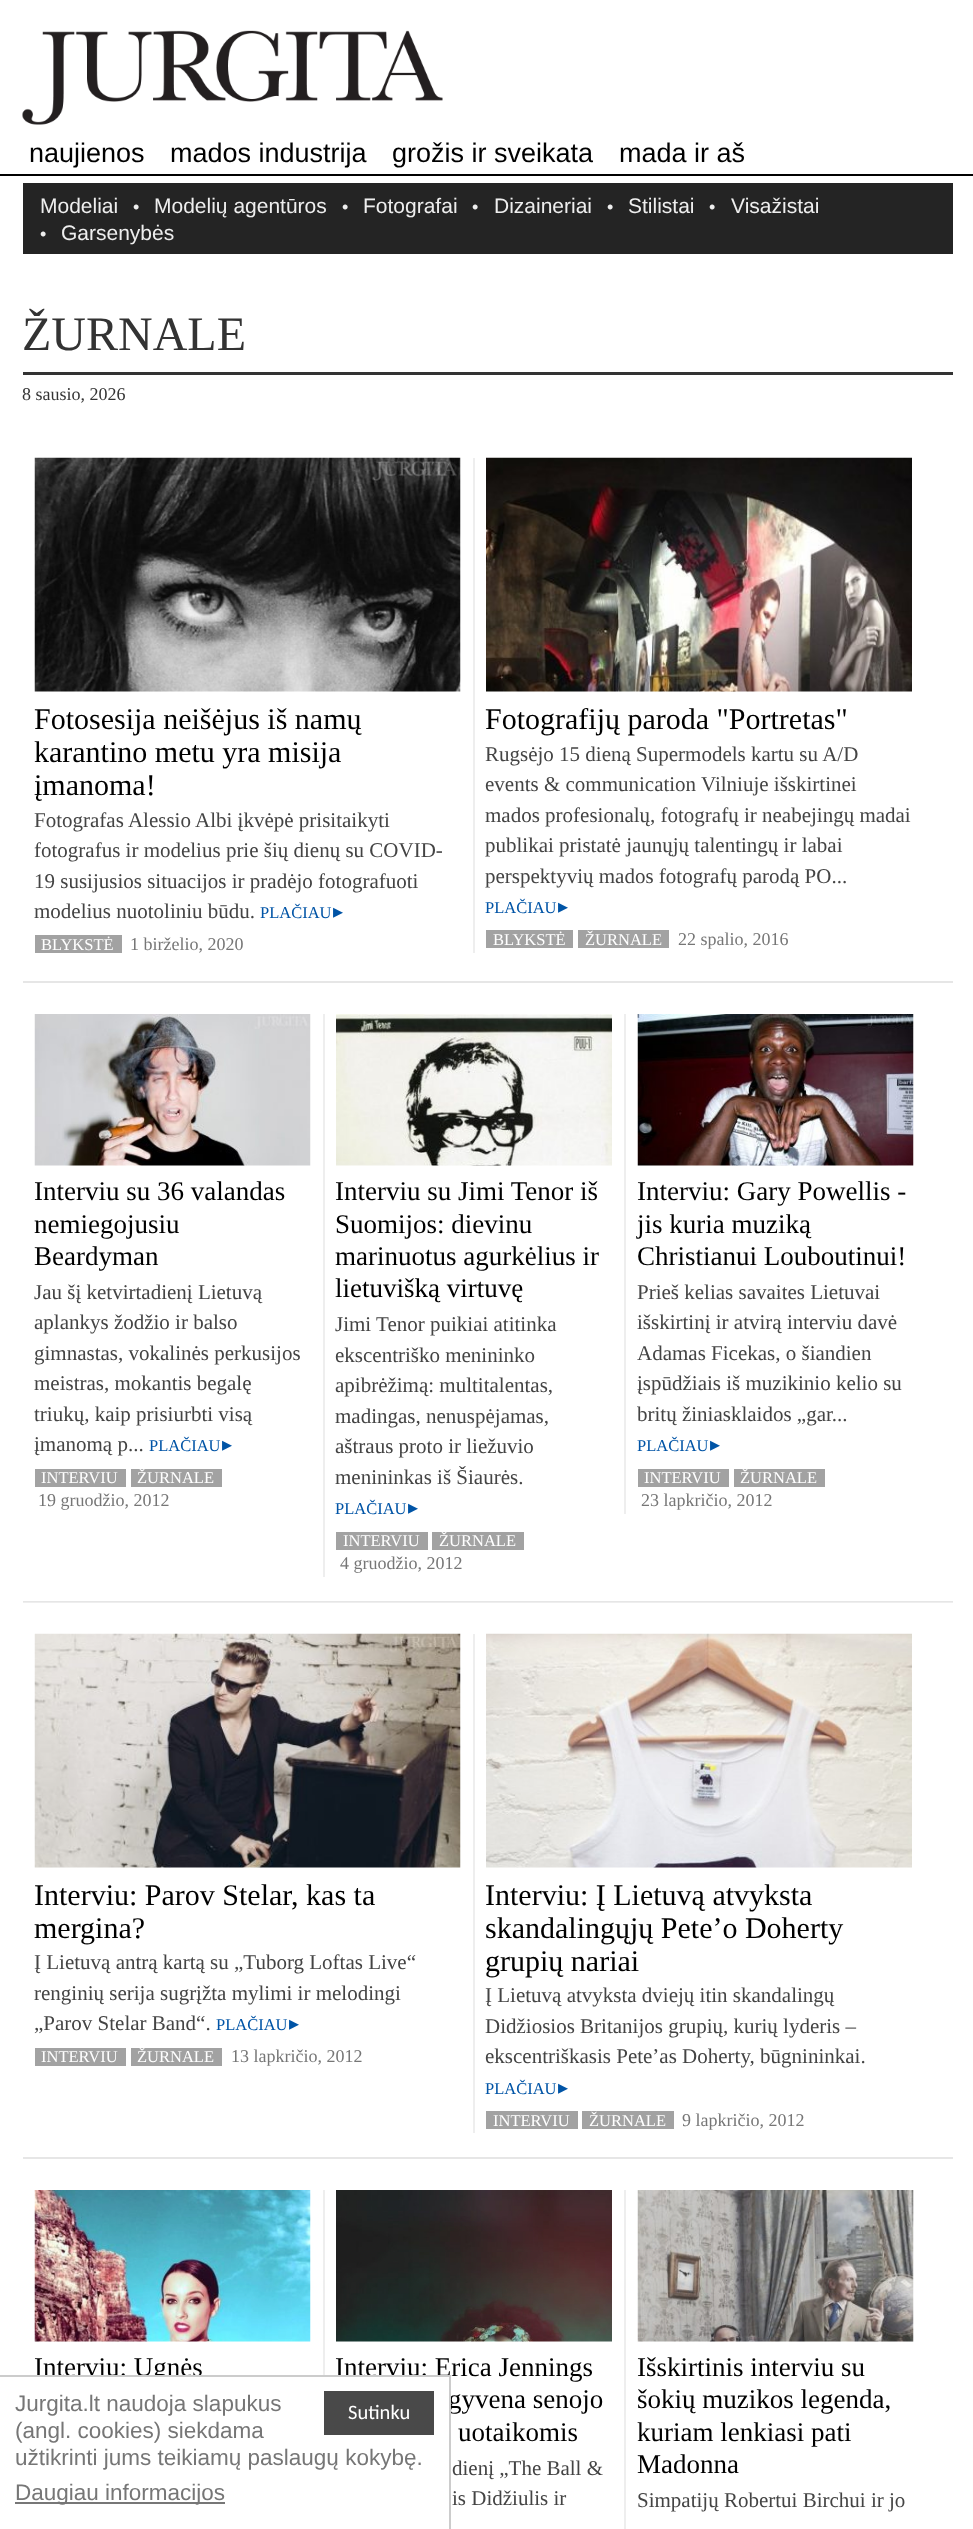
<svg xmlns="http://www.w3.org/2000/svg" width="973" height="2529" viewBox="0 0 973 2529">
  <rect width="100%" height="100%" fill="#fff"/>
  <image x="22" y="30" width="421" height="95" href="img/1.png"/>
  <path d="M0 174h973v2H0z" fill="#000"/>
  <path d="M23 183h930v71H23z" fill="#242424"/>
  <path d="M23 372h930v3H23z" fill="#333"/>
  <image x="34" y="457" width="427" height="235" href="img/2.png"/>
  <path d="M35 935h87v18H35z" fill="#a2a2a2"/>
  <path d="M473 458h2v495H473z" fill="#eee"/>
  <image x="486" y="457" width="426" height="235" href="img/3.png"/>
  <path d="M486 930h87v18H486z" fill="#a2a2a2"/>
  <path d="M578 930h91v18H578z" fill="#a2a2a2"/>
  <path d="M23 981h930v2H23z" fill="#e6e6e6"/>
  <image x="34" y="1014" width="277" height="152" href="img/4.png"/>
  <path d="M35 1469h91v18H35z" fill="#a2a2a2"/>
  <path d="M131 1469h91v18H131z" fill="#a2a2a2"/>
  <path d="M323 1014h2v563H323z" fill="#eee"/>
  <image x="336" y="1014" width="276" height="152" href="img/5.png"/>
  <path d="M336 1532h92v18H336z" fill="#a2a2a2"/>
  <path d="M432 1532h92v18H432z" fill="#a2a2a2"/>
  <path d="M624 1014h2v500H624z" fill="#eee"/>
  <image x="637" y="1014" width="277" height="152" href="img/6.png"/>
  <path d="M638 1469h91v18H638z" fill="#a2a2a2"/>
  <path d="M734 1469h91v18H734z" fill="#a2a2a2"/>
  <path d="M23 1601h930v1H23z" fill="#e6e6e6"/>
  <path d="M23 1602h930v1H23z" fill="#eee"/>
  <image x="34" y="1633" width="427" height="235" href="img/7.png"/>
  <path d="M35 2048h91v18H35z" fill="#a2a2a2"/>
  <path d="M131 2048h91v18H131z" fill="#a2a2a2"/>
  <path d="M473 1634h2v499H473z" fill="#eee"/>
  <image x="486" y="1633" width="426" height="235" href="img/8.png"/>
  <path d="M486 2111h92v18H486z" fill="#a2a2a2"/>
  <path d="M582 2111h92v18H582z" fill="#a2a2a2"/>
  <path d="M23 2157h930v2H23z" fill="#e6e6e6"/>
  <image x="34" y="2190" width="277" height="152" href="img/9.png"/>
  <path d="M323 2190h2v185H323z" fill="#eee"/>
  <image x="336" y="2190" width="276" height="152" href="img/10.png"/>
  <path d="M624 2190h2v339H624z" fill="#eee"/>
  <image x="637" y="2190" width="277" height="152" href="img/11.png"/>
  <path d="M15 2502h210v2H15z" fill="#777"/>
  <g font-family="Liberation Sans" font-size="27" fill="#000">
    <text x="29" y="162">naujienos</text>
    <text x="170" y="162">mados industrija</text>
    <text x="392" y="162">grožis ir sveikata</text>
    <text x="619" y="162">mada ir aš</text>
  </g>
  <text x="40" y="213" font-family="Liberation Sans" font-size="21" fill="#eee">Modeliai</text>
  <text x="133" y="213" font-family="Liberation Sans" font-size="18" fill="#eee">•</text>
  <text x="154" y="213" font-family="Liberation Sans" font-size="21" fill="#eee">Modelių agentūros</text>
  <text x="342" y="213" font-family="Liberation Sans" font-size="18" fill="#eee">•</text>
  <text x="363" y="213" font-family="Liberation Sans" font-size="21" fill="#eee">Fotografai</text>
  <text x="472" y="213" font-family="Liberation Sans" font-size="18" fill="#eee">•</text>
  <text x="494" y="213" font-family="Liberation Sans" font-size="21" fill="#eee">Dizaineriai</text>
  <text x="607" y="213" font-family="Liberation Sans" font-size="18" fill="#eee">•</text>
  <text x="628" y="213" font-family="Liberation Sans" font-size="21" fill="#eee">Stilistai</text>
  <text x="709" y="213" font-family="Liberation Sans" font-size="18" fill="#eee">•</text>
  <text x="731" y="213" font-family="Liberation Sans" font-size="21" fill="#eee">Visažistai</text>
  <text x="40" y="240" font-family="Liberation Sans" font-size="18" fill="#eee">•</text>
  <text x="61" y="240" font-family="Liberation Sans" font-size="21" fill="#eee">Garsenybės</text>
  <text x="22" y="350" font-family="Liberation Serif" font-size="48" fill="#333">ŽURNALE</text>
  <text x="22" y="400" font-family="Liberation Serif" font-size="18" fill="#333">8 sausio, 2026</text>
  <g font-family="Liberation Serif" font-size="30" fill="#000">
    <text x="34" y="729">Fotosesija neišėjus iš namų</text>
    <text x="34" y="762">karantino metu yra misija</text>
    <text x="34" y="795">įmanoma!</text>
  </g>
  <g font-family="Liberation Serif" font-size="21" fill="#444">
    <text x="34" y="827">Fotografas Alessio Albi įkvėpė prisitaikyti</text>
    <text x="34" y="857">fotografus ir modelius prie šių dienų su COVID-</text>
    <text x="34" y="888">19 susijusios situacijos ir pradėjo fotografuoti</text>
    <text x="34" y="918">modelius nuotoliniu būdu.</text>
  </g>
  <text x="260" y="918" font-family="Liberation Serif" font-size="16.5" fill="#0054a6">PLAČIAU</text>
  <text x="333" y="918" font-family="DejaVu Sans" font-size="20" fill="#0054a6">▸</text>
  <text x="41" y="950" font-family="Liberation Serif" font-size="16.5" fill="#fff">BLYKSTĖ</text>
  <text x="130" y="950" font-family="Liberation Serif" font-size="18" fill="#767676">1 birželio, 2020</text>
  <text x="485" y="729" font-family="Liberation Serif" font-size="30" fill="#000">Fotografijų paroda "Portretas"</text>
  <g font-family="Liberation Serif" font-size="21" fill="#444">
    <text x="485" y="761">Rugsėjo 15 dieną Supermodels kartu su A/D</text>
    <text x="485" y="791">events &amp; communication Vilniuje išskirtinei</text>
    <text x="485" y="822">mados profesionalų, fotografų ir neabejingų madai</text>
    <text x="485" y="852">publikai pristatė jaunųjų talentingų ir labai</text>
    <text x="485" y="883">perspektyvių mados fotografų parodą PO...</text>
  </g>
  <text x="485" y="913" font-family="Liberation Serif" font-size="16.5" fill="#0054a6">PLAČIAU</text>
  <text x="558" y="913" font-family="DejaVu Sans" font-size="20" fill="#0054a6">▸</text>
  <g font-family="Liberation Serif" font-size="16.5" fill="#fff">
    <text x="493" y="945">BLYKSTĖ</text>
    <text x="585" y="945">ŽURNALE</text>
  </g>
  <text x="678" y="945" font-family="Liberation Serif" font-size="18" fill="#767676">22 spalio, 2016</text>
  <g font-family="Liberation Serif" font-size="27" fill="#000">
    <text x="34" y="1200">Interviu su 36 valandas</text>
    <text x="34" y="1233">nemiegojusiu</text>
    <text x="34" y="1265">Beardyman</text>
  </g>
  <g font-family="Liberation Serif" font-size="21" fill="#444">
    <text x="34" y="1299">Jau šį ketvirtadienį Lietuvą</text>
    <text x="34" y="1329">aplankys žodžio ir balso</text>
    <text x="34" y="1360">gimnastas, vokalinės perkusijos</text>
    <text x="34" y="1390">meistras, mokantis begalę</text>
    <text x="34" y="1421">triukų, kaip prisiurbti visą</text>
    <text x="34" y="1451">įmanomą p...</text>
  </g>
  <text x="149" y="1451" font-family="Liberation Serif" font-size="16.5" fill="#0054a6">PLAČIAU</text>
  <text x="222" y="1451" font-family="DejaVu Sans" font-size="20" fill="#0054a6">▸</text>
  <g font-family="Liberation Serif" font-size="16.5" fill="#fff">
    <text x="41" y="1483">INTERVIU</text>
    <text x="137" y="1483">ŽURNALE</text>
  </g>
  <text x="38" y="1506" font-family="Liberation Serif" font-size="18" fill="#767676">19 gruodžio, 2012</text>
  <g font-family="Liberation Serif" font-size="27" fill="#000">
    <text x="335" y="1200">Interviu su Jimi Tenor iš</text>
    <text x="335" y="1233">Suomijos: dievinu</text>
    <text x="335" y="1265">marinuotus agurkėlius ir</text>
    <text x="335" y="1297">lietuvišką virtuvę</text>
  </g>
  <g font-family="Liberation Serif" font-size="21" fill="#444">
    <text x="335" y="1331">Jimi Tenor puikiai atitinka</text>
    <text x="335" y="1362">ekscentriško menininko</text>
    <text x="335" y="1392">apibrėžimą: multitalentas,</text>
    <text x="335" y="1423">madingas, nenuspėjamas,</text>
    <text x="335" y="1453">aštraus proto ir liežuvio</text>
    <text x="335" y="1484">menininkas iš Šiaurės.</text>
  </g>
  <text x="335" y="1514" font-family="Liberation Serif" font-size="16.5" fill="#0054a6">PLAČIAU</text>
  <text x="408" y="1514" font-family="DejaVu Sans" font-size="20" fill="#0054a6">▸</text>
  <g font-family="Liberation Serif" font-size="16.5" fill="#fff">
    <text x="343" y="1546">INTERVIU</text>
    <text x="439" y="1546">ŽURNALE</text>
  </g>
  <text x="340" y="1569" font-family="Liberation Serif" font-size="18" fill="#767676">4 gruodžio, 2012</text>
  <g font-family="Liberation Serif" font-size="27" fill="#000">
    <text x="637" y="1200">Interviu: Gary Powellis -</text>
    <text x="637" y="1233">jis kuria muziką</text>
    <text x="637" y="1265">Christianui Louboutinui!</text>
  </g>
  <g font-family="Liberation Serif" font-size="21" fill="#444">
    <text x="637" y="1299">Prieš kelias savaites Lietuvai</text>
    <text x="637" y="1329">išskirtinį ir atvirą interviu davė</text>
    <text x="637" y="1360">Adamas Ficekas, o šiandien</text>
    <text x="637" y="1390">įspūdžiais iš muzikinio kelio su</text>
    <text x="637" y="1421">britų žiniasklaidos „gar...</text>
  </g>
  <text x="637" y="1451" font-family="Liberation Serif" font-size="16.5" fill="#0054a6">PLAČIAU</text>
  <text x="710" y="1451" font-family="DejaVu Sans" font-size="20" fill="#0054a6">▸</text>
  <g font-family="Liberation Serif" font-size="16.5" fill="#fff">
    <text x="644" y="1483">INTERVIU</text>
    <text x="740" y="1483">ŽURNALE</text>
  </g>
  <text x="641" y="1506" font-family="Liberation Serif" font-size="18" fill="#767676">23 lapkričio, 2012</text>
  <g font-family="Liberation Serif" font-size="30" fill="#000">
    <text x="34" y="1905">Interviu: Parov Stelar, kas ta</text>
    <text x="34" y="1938">mergina?</text>
  </g>
  <g font-family="Liberation Serif" font-size="21" fill="#444">
    <text x="34" y="1969">Į Lietuvą antrą kartą su „Tuborg Loftas Live“</text>
    <text x="34" y="2000">renginių serija sugrįžta mylimi ir melodingi</text>
    <text x="34" y="2030">„Parov Stelar Band“.</text>
  </g>
  <text x="216" y="2030" font-family="Liberation Serif" font-size="16.5" fill="#0054a6">PLAČIAU</text>
  <text x="289" y="2030" font-family="DejaVu Sans" font-size="20" fill="#0054a6">▸</text>
  <g font-family="Liberation Serif" font-size="16.5" fill="#fff">
    <text x="41" y="2062">INTERVIU</text>
    <text x="137" y="2062">ŽURNALE</text>
  </g>
  <text x="231" y="2062" font-family="Liberation Serif" font-size="18" fill="#767676">13 lapkričio, 2012</text>
  <g font-family="Liberation Serif" font-size="30" fill="#000">
    <text x="485" y="1905">Interviu: Į Lietuvą atvyksta</text>
    <text x="485" y="1938">skandalingųjų Pete’o Doherty</text>
    <text x="485" y="1971">grupių nariai</text>
  </g>
  <g font-family="Liberation Serif" font-size="21" fill="#444">
    <text x="485" y="2002">Į Lietuvą atvyksta dviejų itin skandalingų</text>
    <text x="485" y="2033">Didžiosios Britanijos grupių, kurių lyderis –</text>
    <text x="485" y="2063">ekscentriškasis Pete’as Doherty, būgnininkai.</text>
  </g>
  <text x="485" y="2094" font-family="Liberation Serif" font-size="16.5" fill="#0054a6">PLAČIAU</text>
  <text x="558" y="2094" font-family="DejaVu Sans" font-size="20" fill="#0054a6">▸</text>
  <g font-family="Liberation Serif" font-size="16.5" fill="#fff">
    <text x="493" y="2126">INTERVIU</text>
    <text x="589" y="2126">ŽURNALE</text>
  </g>
  <text x="682" y="2126" font-family="Liberation Serif" font-size="18" fill="#767676">9 lapkričio, 2012</text>
  <g font-family="Liberation Serif" font-size="27" fill="#000">
    <text x="34" y="2376">Interviu: Ugnės</text>
    <text x="335" y="2376">Interviu: Erica Jennings</text>
    <text x="448" y="2408">gyvena senojo</text>
    <text x="458" y="2441">uotaikomis</text>
  </g>
  <g font-family="Liberation Serif" font-size="21" fill="#444">
    <text x="452" y="2475">dienį „The Ball &amp;</text>
    <text x="452" y="2505">is Didžiulis ir</text>
  </g>
  <g font-family="Liberation Serif" font-size="27" fill="#000">
    <text x="637" y="2376">Išskirtinis interviu su</text>
    <text x="637" y="2408">šokių muzikos legenda,</text>
    <text x="637" y="2441">kuriam lenkiasi pati</text>
    <text x="637" y="2473">Madonna</text>
  </g>
  <text x="637" y="2507" font-family="Liberation Serif" font-size="21" fill="#444">Simpatijų Robertui Birchui ir jo</text>
  <path d="M154 2377h295v35H154z" fill="#fff"/>
  <path d="M0 2375h450v2H0z" fill="#ccc"/>
  <path d="M449 2375h2v154H449z" fill="#ccc"/>
  <g font-family="Liberation Sans" font-size="22.5" fill="#767676">
    <text x="15" y="2411">Jurgita.lt naudoja slapukus</text>
    <text x="15" y="2438">(angl. cookies) siekdama</text>
    <text x="15" y="2465">užtikrinti jums teikiamų paslaugų kokybę.</text>
    <text x="15" y="2500">Daugiau informacijos</text>
  </g>
  <path d="M324 2391h110v44H324z" fill="#494949"/>
  <text x="348" y="2419" font-family="Carlito" font-size="20.5" fill="#fff">Sutinku</text>
</svg>
